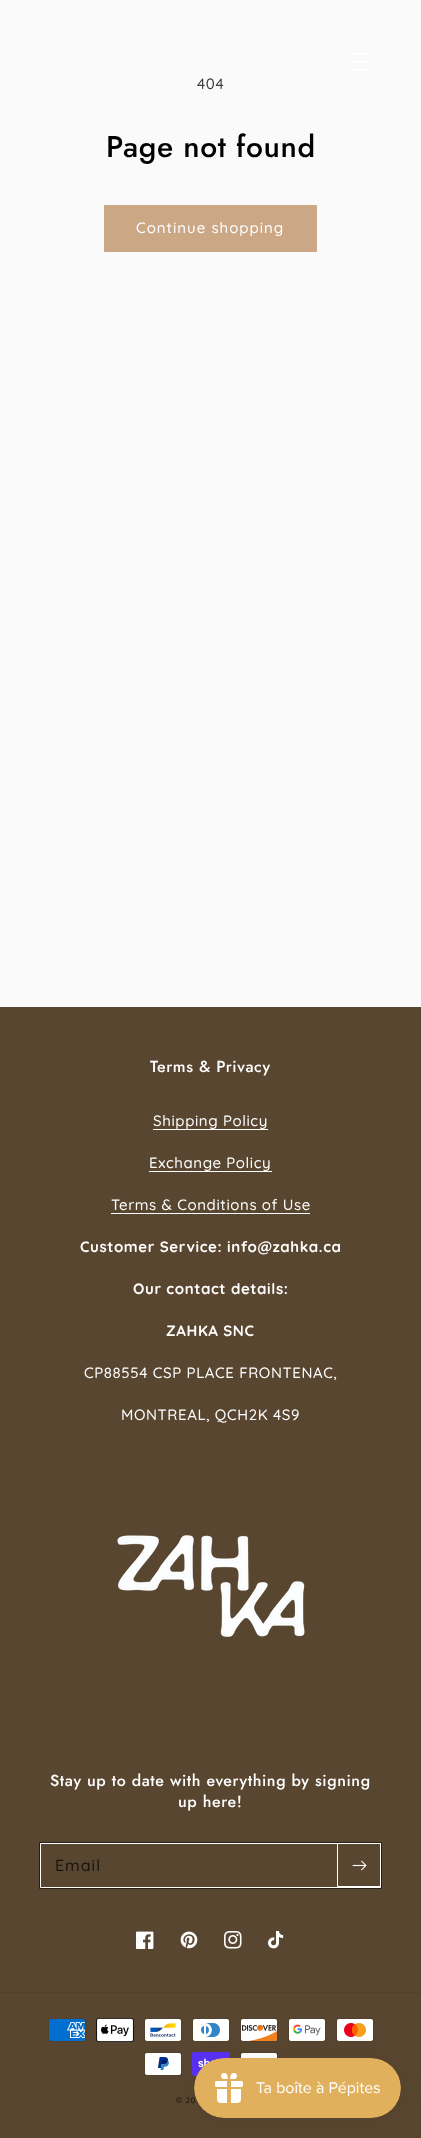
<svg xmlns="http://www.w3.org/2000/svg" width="421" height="2138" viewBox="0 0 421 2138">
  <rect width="100%" height="100%" fill="#fafafa"/>
  <image x="351" y="53" width="19" height="18" href="img/1.png"/>
  <path d="M104.5 205.5h212v46H104.5z" fill="none" stroke="#cba786"/>
  <path d="M105 206h211v45H105z" fill="#cba786"/>
  <path d="M0 1007h421v1131H0z" fill="#594630"/>
  <path d="M153 1129h115v1H153z" fill="#fff"/>
  <path d="M149 1171h123v1H149z" fill="#fff"/>
  <path d="M111 1213h199v1H111z" fill="#fff"/>
  <image x="117" y="1535" width="188" height="102" href="img/2.png"/>
  <path d="M39.5 1842.5h342v46H39.5z" fill="none" stroke="#282016"/>
  <path d="M40.5 1843.5h340v44H40.5z" fill="none" stroke="#fff"/>
  <path d="M337.5 1843.5h43v43H337.5z" fill="none" stroke="#fff"/>
  <image x="352" y="1860" width="15" height="11" href="img/3.png"/>
  <image x="136" y="1931" width="18" height="18" href="img/4.png"/>
  <image x="180" y="1931" width="18" height="18" href="img/5.png"/>
  <image x="224" y="1931" width="18" height="18" href="img/6.png"/>
  <image x="268" y="1931" width="16" height="18" href="img/7.png"/>
  <path d="M0 1992h421v1H0z" fill="#52402c"/>
  <image x="48" y="2018" width="38" height="24" href="img/8.png"/>
  <image x="96" y="2018" width="38" height="24" href="img/9.png"/>
  <image x="144" y="2018" width="38" height="24" href="img/10.png"/>
  <image x="192" y="2018" width="38" height="24" href="img/11.png"/>
  <image x="240" y="2018" width="38" height="24" href="img/12.png"/>
  <image x="288" y="2018" width="38" height="24" href="img/13.png"/>
  <image x="336" y="2018" width="38" height="24" href="img/14.png"/>
  <image x="144" y="2052" width="38" height="24" href="img/15.png"/>
  <image x="192" y="2052" width="38" height="24" href="img/16.png"/>
  <image x="240" y="2052" width="38" height="6" href="img/17.png"/>
  <rect x="194" y="2058" width="207" height="60" rx="30" fill="#0000000d" filter="blur(12.5px)"/>
  <text x="197" y="89" font-family="Quicksand" font-size="15" font-weight="500" letter-spacing="0.6" fill="#3f3f3f">404</text>
  <text x="106" y="157" font-family="Jost" font-size="30" font-weight="500" letter-spacing="0.6" fill="#000">Page not found</text>
  <text x="136" y="233" font-family="Quicksand" font-size="15" font-weight="500" letter-spacing="1" fill="#fff">Continue shopping</text>
  <text x="150" y="1072" font-family="Jost" font-size="16" font-weight="500" letter-spacing="0.6" fill="#fff">Terms &amp; Privacy</text>
  <g font-family="Quicksand" font-size="15" font-weight="500" letter-spacing="0.6" fill="#fff">
    <text x="153" y="1126">Shipping Policy</text>
    <text x="149" y="1168">Exchange Policy</text>
    <text x="111" y="1210">Terms &amp; Conditions of Use</text>
  </g>
  <g font-family="Quicksand" font-size="15" font-weight="bold" letter-spacing="0.6" fill="#fff">
    <text x="80" y="1252">Customer Service: info@zahka.ca</text>
    <text x="133" y="1294">Our contact details:</text>
    <text x="166" y="1336">ZAHKA SNC</text>
  </g>
  <g font-family="Quicksand" font-size="15" font-weight="500" letter-spacing="0.6" fill="#fff">
    <text x="84" y="1378">CP88554 CSP PLACE FRONTENAC,</text>
    <text x="121" y="1420">MONTREAL, QCH2K 4S9</text>
  </g>
  <g font-family="Jost" font-size="16" font-weight="500" letter-spacing="0.6" fill="#fff">
    <text x="50" y="1786">Stay up to date with everything by signing</text>
    <text x="178" y="1807">up here!</text>
  </g>
  <text x="55" y="1871" font-family="Quicksand" font-size="16" font-weight="500" letter-spacing="1" fill="#16120c">Email</text>
  <text x="176" y="2103" font-family="Quicksand" font-size="8" font-weight="500" letter-spacing="0.5" fill="#16120c">© 20</text>
  <image x="194" y="2058" width="207" height="60" href="img/18.png"/>
</svg>
